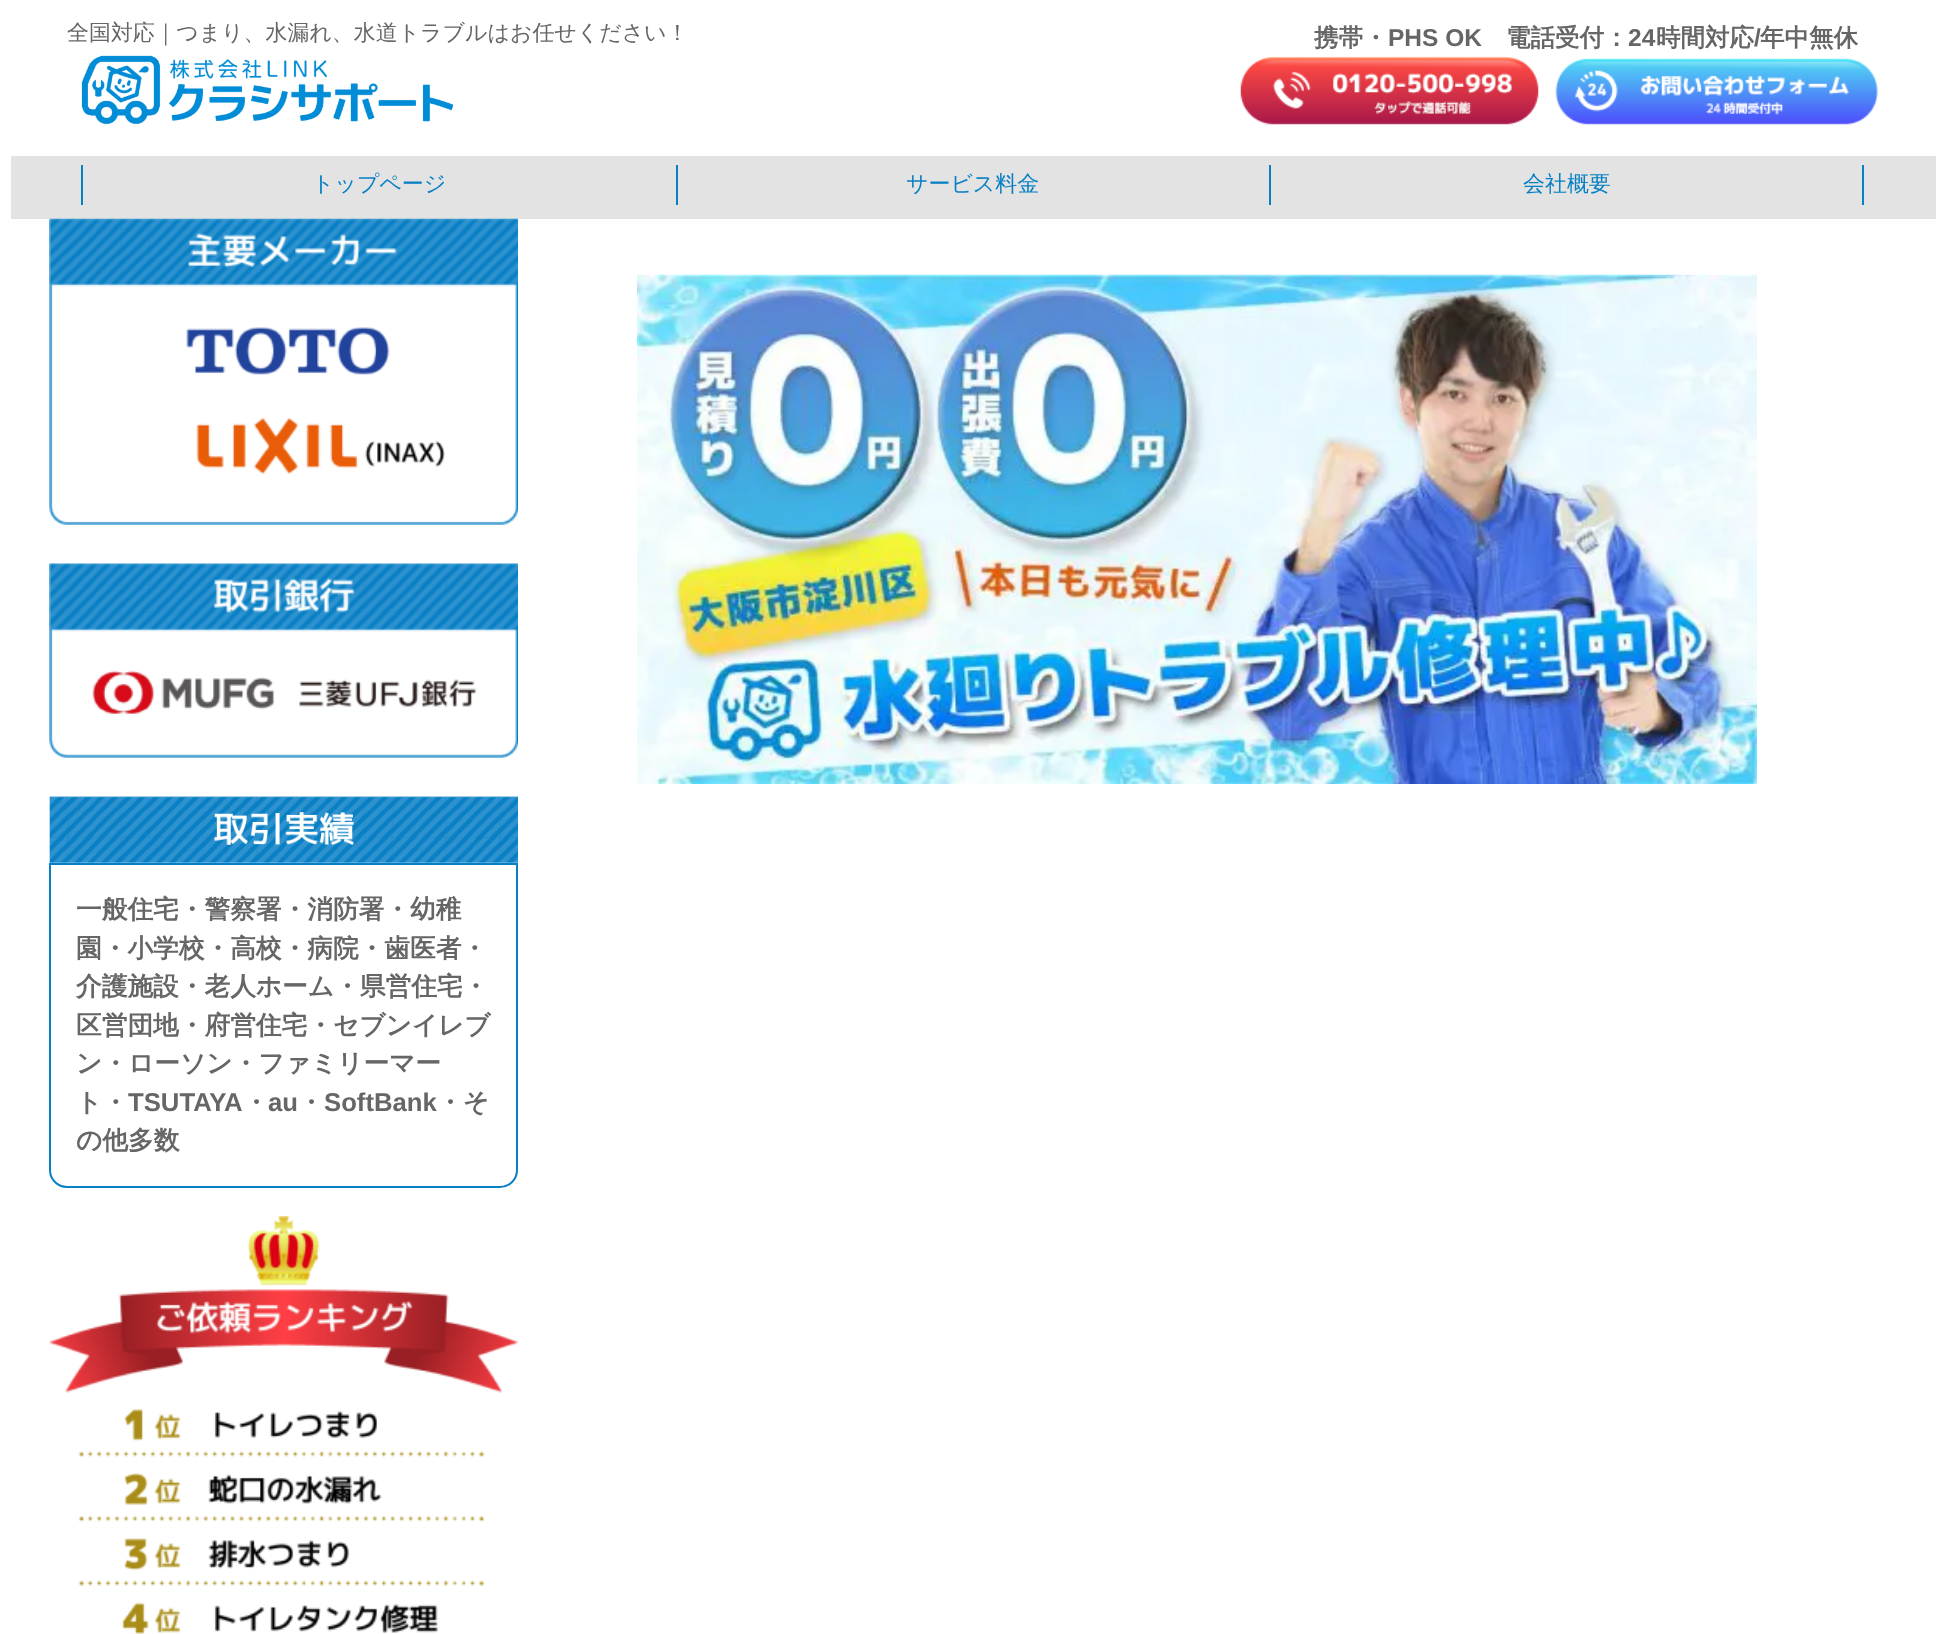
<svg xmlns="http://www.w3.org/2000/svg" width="1944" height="1634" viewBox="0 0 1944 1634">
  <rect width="100%" height="100%" fill="#fff"/>
  <image x="81" y="55" width="372" height="69" href="img/1.png"/>
  <image x="1240" y="56" width="299" height="69" href="img/2.png"/>
  <image x="1555" y="58" width="323" height="67" href="img/3.png"/>
  <path d="M11 156h1925v63H11z" fill="#e3e3e3"/>
  <path d="M81 165h2v40H81z" fill="#0980c4"/>
  <path d="M676 165h2v40H676z" fill="#0980c4"/>
  <path d="M1862 165h2v40H1862z" fill="#0980c4"/>
  <path d="M1269 165h2v40H1269z" fill="#0980c4"/>
  <image x="637" y="274" width="1120" height="510" href="img/4.png"/>
  <image x="49" y="218" width="469" height="307" href="img/5.png"/>
  <image x="49" y="563" width="469" height="195" href="img/6.png"/>
  <image x="49" y="796" width="469" height="67" href="img/7.png"/>
  <path d="M50 864H517V1170C517 1179.5 509.5 1187 500 1187H67C57.5 1187 50 1179.5 50 1170Z" fill="none" stroke="#0980c4" stroke-width="2"/>
  <image x="49" y="1216" width="469" height="418" href="img/8.png"/>
  <text x="67" y="40" font-family="WenQuanYi Zen Hei" font-size="21.95" font-weight="500" fill="#666">全国対応｜つまり、水漏れ、水道トラブルはお任せください！</text>
  <text x="1314" y="46" font-family="WenQuanYi Zen Hei" font-size="24.5" font-weight="bold" fill="#666">携帯・</text>
  <text x="1388" y="46" font-family="Liberation Sans" font-size="24.5" font-weight="bold" fill="#666">PHS OK</text>
  <text x="1506" y="46" font-family="WenQuanYi Zen Hei" font-size="24.5" font-weight="bold" fill="#666">電話受付：</text>
  <text x="1628" y="46" font-family="Liberation Sans" font-size="24.5" font-weight="bold" fill="#666">24</text>
  <text x="1656" y="46" font-family="WenQuanYi Zen Hei" font-size="24.5" font-weight="bold" fill="#666">時間対応</text>
  <text x="1754" y="46" font-family="Liberation Sans" font-size="24.5" font-weight="bold" fill="#666">/</text>
  <text x="1760" y="46" font-family="WenQuanYi Zen Hei" font-size="24.5" font-weight="bold" fill="#666">年中無休</text>
  <g font-family="WenQuanYi Zen Hei" font-size="21.95" font-weight="500" fill="#0980c4">
    <text x="312" y="191">トップページ</text>
    <text x="906" y="191">サービス料金</text>
    <text x="1523" y="191">会社概要</text>
  </g>
  <g font-family="WenQuanYi Zen Hei" font-size="25.7" font-weight="bold" fill="#666">
    <text x="76" y="918">一般住宅・警察署・消防署・幼稚</text>
    <text x="76" y="957">園・小学校・高校・病院・歯医者・</text>
    <text x="76" y="995">介護施設・老人ホーム・県営住宅・</text>
    <text x="76" y="1034">区営団地・府営住宅・セブンイレブ</text>
    <text x="76" y="1072">ン・ローソン・ファミリーマー</text>
    <text x="76" y="1111">ト・</text>
  </g>
  <text x="128" y="1111" font-family="Liberation Sans" font-size="25.7" font-weight="bold" fill="#666">TSUTAYA</text>
  <text x="243" y="1111" font-family="WenQuanYi Zen Hei" font-size="25.7" font-weight="bold" fill="#666">・</text>
  <text x="268" y="1111" font-family="Liberation Sans" font-size="25.7" font-weight="bold" fill="#666">au</text>
  <text x="298" y="1111" font-family="WenQuanYi Zen Hei" font-size="25.7" font-weight="bold" fill="#666">・</text>
  <text x="324" y="1111" font-family="Liberation Sans" font-size="25.7" font-weight="bold" fill="#666">SoftBank</text>
  <g font-family="WenQuanYi Zen Hei" font-size="25.7" font-weight="bold" fill="#666">
    <text x="437" y="1111">・そ</text>
    <text x="76" y="1149">の他多数</text>
  </g>
</svg>
